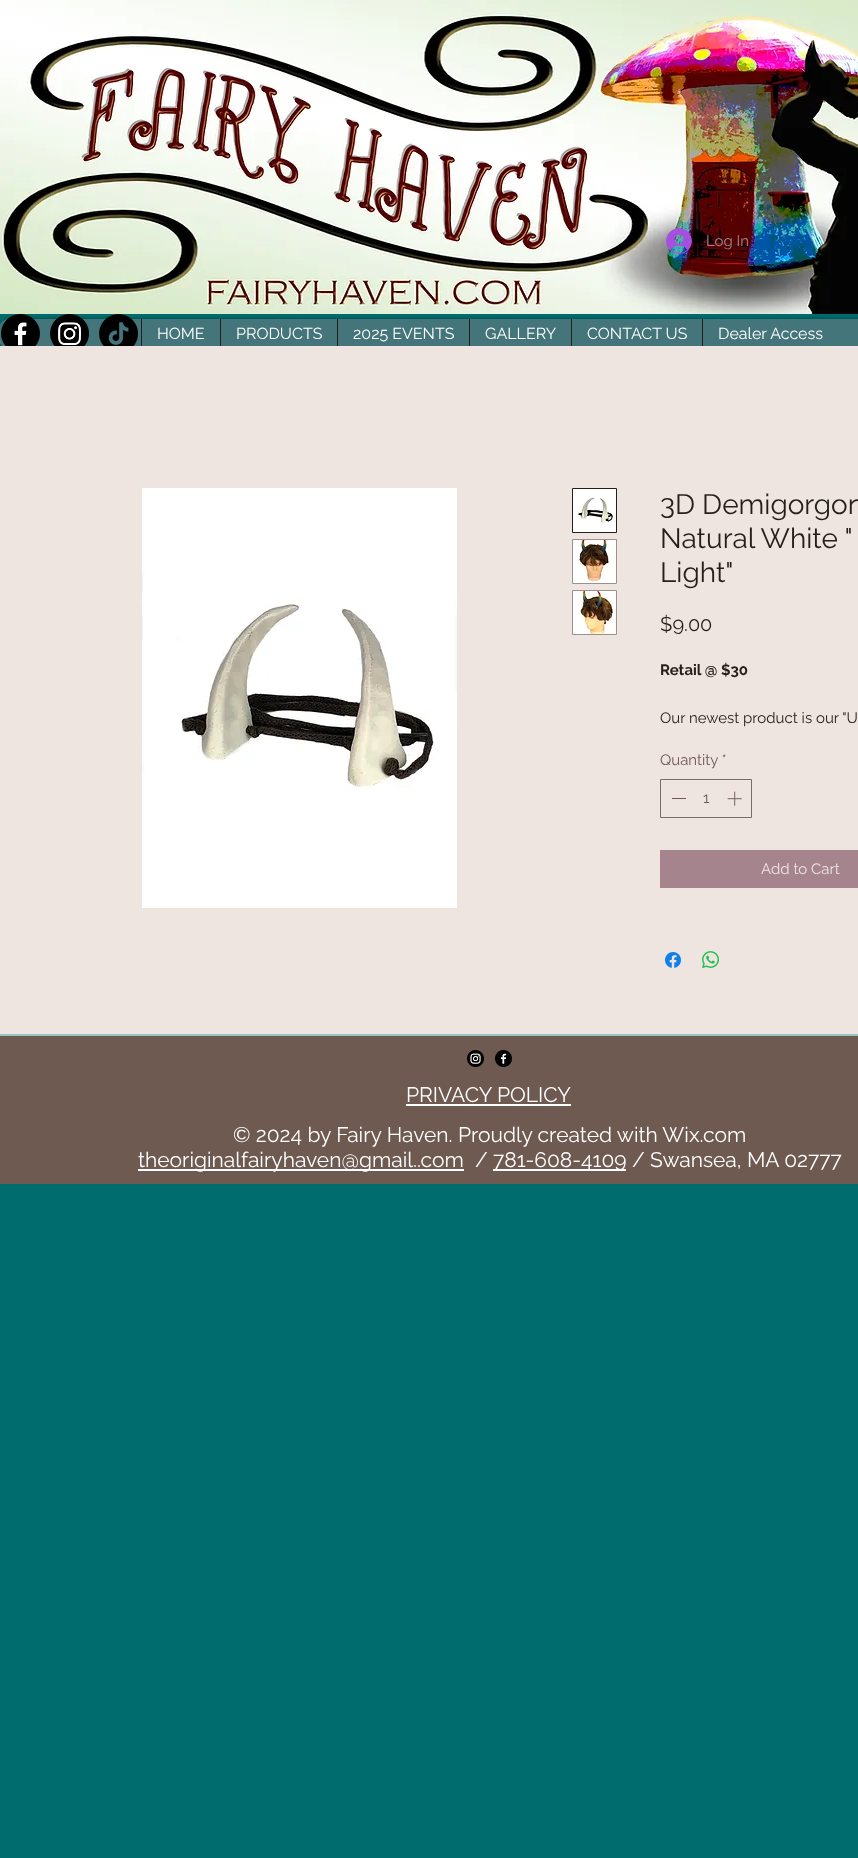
<svg xmlns="http://www.w3.org/2000/svg" width="858" height="1858" viewBox="0 0 858 1858">
  <defs>
    <clipPath id="clip1"><path d="M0 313H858V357H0ZM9 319H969C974.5 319 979 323.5 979 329V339C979 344.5 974.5 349 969 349H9C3.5 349-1 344.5-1 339V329C-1 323.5 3.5 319 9 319Z" clip-rule="evenodd"/></clipPath>
  </defs>
  <rect width="100%" height="100%" fill="#006c6d"/>
  <image x="0" y="0" width="858" height="314" href="img/1.png"/>
  <image x="666" y="228" width="26" height="26" href="img/2.png"/>
  <g clip-path="url(#clip1)">
    <rect x="-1" y="320" width="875" height="30" rx="10" fill="#00000099" filter="blur(2px)"/>
  </g>
  <rect x="-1" y="319" width="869" height="30" rx="10" fill="#a5848d69"/>
  <image x="1" y="314" width="39" height="32" href="img/3.png"/>
  <image x="50" y="314" width="39" height="32" href="img/4.png"/>
  <image x="99" y="314" width="39" height="32" href="img/5.png"/>
  <path d="M141 319h1v30H141z" fill="#251e1b"/>
  <path d="M220 319h1v30H220z" fill="#251e1b"/>
  <path d="M337 319h1v30H337z" fill="#251e1b"/>
  <path d="M469 319h1v30H469z" fill="#251e1b"/>
  <path d="M571 319h1v30H571z" fill="#251e1b"/>
  <path d="M702 319h1v30H702z" fill="#251e1b"/>
  <path d="M0 346h858v688H0z" fill="#eee4e0"/>
  <image x="142" y="488" width="315" height="420" href="img/6.png"/>
  <path d="M572.5 488.5h44v44H572.5z" fill="none" stroke="#251e1b"/>
  <image x="573" y="489" width="43" height="43" href="img/7.png"/>
  <path d="M572.5 539.5h44v44H572.5z" fill="none" stroke="#9e908a"/>
  <image x="573" y="540" width="43" height="43" href="img/8.png"/>
  <path d="M572.5 590.5h44v44H572.5z" fill="none" stroke="#9e908a"/>
  <image x="573" y="591" width="43" height="43" href="img/9.png"/>
  <path d="M660.5 779.5h91v38H660.5z" fill="none" stroke="#756d6a"/>
  <path d="M672 798h14v1H672z" fill="#6e5a51"/>
  <image x="727" y="791" width="15" height="15" href="img/10.png"/>
  <path d="M660 850h198v38H660z" fill="#a5848d"/>
  <image x="665" y="952" width="16" height="16" href="img/11.png"/>
  <image x="702" y="951" width="17" height="17" href="img/12.png"/>
  <path d="M0 1034h858v2H0z" fill="#ffffff99"/>
  <path d="M0 1036h858v148H0z" fill="#6e5a51"/>
  <image x="467" y="1050" width="17" height="17" href="img/13.png"/>
  <image x="495" y="1050" width="17" height="17" href="img/14.png"/>
  <path d="M406 1104h165v2H406z" fill="#fff"/>
  <path d="M138 1169h326v2H138z" fill="#fff"/>
  <path d="M493 1169h133v2H493z" fill="#fff"/>
  <text x="706" y="246" font-family="Raleway" font-size="15" fill="#a5848d">Log In</text>
  <g font-family="Raleway" font-size="16" fill="#fff">
    <text x="157" y="339">HOME</text>
    <text x="236" y="339">PRODUCTS</text>
    <text x="353" y="339">2025 EVENTS</text>
    <text x="485" y="339">GALLERY</text>
    <text x="587" y="339">CONTACT US</text>
    <text x="718" y="339">Dealer Access</text>
  </g>
  <g font-family="Raleway" font-size="28" fill="#251e1b">
    <text x="660" y="514">3D Demigorgon</text>
    <text x="660" y="548">Natural White "</text>
    <text x="660" y="582">Light"</text>
  </g>
  <text x="660" y="631" font-family="Raleway" font-size="20" fill="#251e1b">$9.00</text>
  <text x="660" y="675" font-family="Raleway" font-size="15" font-weight="bold" fill="#251e1b">Retail @ $30</text>
  <text x="660" y="723" font-family="Raleway" font-size="15" fill="#251e1b">Our newest product is our "U</text>
  <g font-family="Raleway" font-size="15" fill="#6e5a51">
    <text x="660" y="765">Quantity *</text>
    <text x="703" y="803">1</text>
  </g>
  <text x="761" y="874" font-family="Raleway" font-size="15" fill="#eee4e0">Add to Cart</text>
  <g font-family="Raleway" font-size="21" fill="#fff">
    <text x="406" y="1102">PRIVACY POLICY</text>
    <text x="233" y="1142">© 2024 by Fairy Haven. Proudly created with Wix.com</text>
    <text x="138" y="1167">theoriginalfairyhaven@gmail..com</text>
    <text x="475" y="1167">/</text>
    <text x="493" y="1167">781-608-4109 / Swansea, MA 02777</text>
  </g>
</svg>
